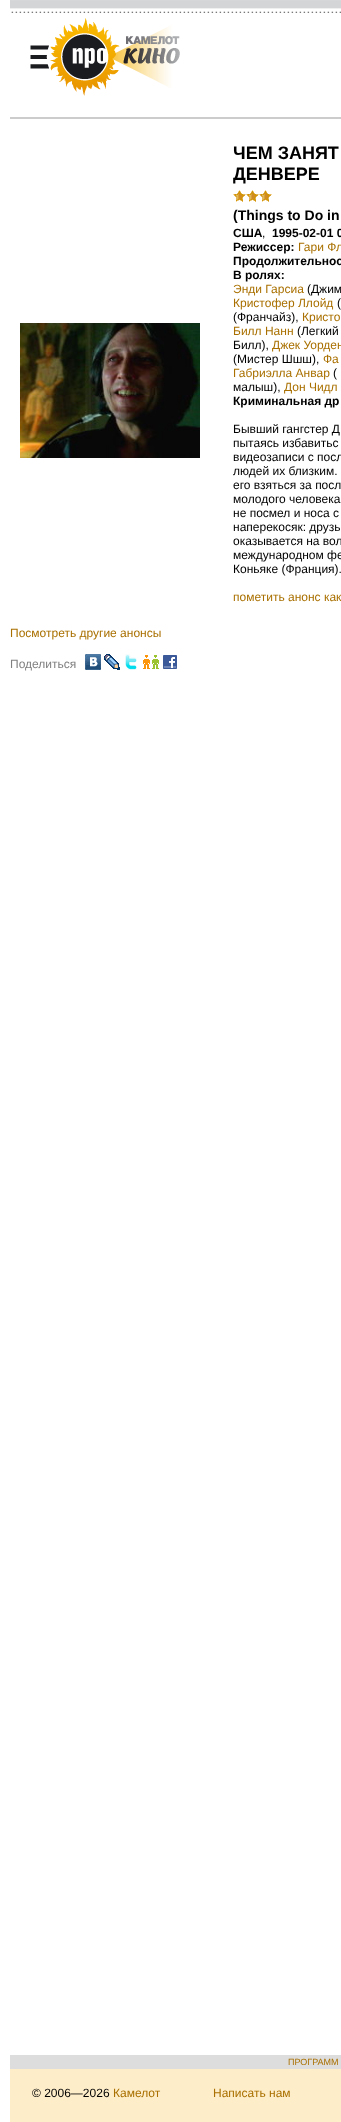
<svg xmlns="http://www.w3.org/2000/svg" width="341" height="2122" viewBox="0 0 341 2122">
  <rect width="100%" height="100%" fill="#fff"/>
  <image x="10" y="0" width="331" height="13" href="img/1.png"/>
  <image x="30" y="18" width="150" height="78" href="img/2.png"/>
  <path d="M10 117h331v2H10z" fill="#ccc"/>
  <image x="20" y="323" width="180" height="135" href="img/3.png"/>
  <image x="233" y="190" width="39" height="12" href="img/4.png"/>
  <image x="85" y="654" width="16" height="16" href="img/5.png"/>
  <image x="104" y="654" width="16" height="16" href="img/6.png"/>
  <image x="125" y="654" width="12" height="16" href="img/7.png"/>
  <image x="143" y="655" width="16" height="14" href="img/8.png"/>
  <image x="163" y="655" width="14" height="14" href="img/9.png"/>
  <path d="M10 2055h331v14H10z" fill="#ddd"/>
  <path d="M10 2069h331v53H10z" fill="#feedc9"/>
  <g font-family="Liberation Sans" font-size="18" font-weight="bold" fill="#000">
    <text x="233" y="159">ЧЕМ ЗАНЯТ</text>
    <text x="233" y="180">ДЕНВЕРЕ</text>
  </g>
  <text x="233" y="220" font-family="Liberation Sans" font-size="14" font-weight="bold" fill="#000">(Things to Do in</text>
  <text x="233" y="237" font-family="Liberation Sans" font-size="12" font-weight="bold" fill="#000">США</text>
  <text x="262" y="237" font-family="Liberation Sans" font-size="12" fill="#000">,</text>
  <g font-family="Liberation Sans" font-size="12" font-weight="bold" fill="#000">
    <text x="272" y="237">1995-02-01 0</text>
    <text x="233" y="251">Режиссер:</text>
  </g>
  <text x="298" y="251" font-family="Liberation Sans" font-size="12" fill="#a97001">Гари Фл</text>
  <g font-family="Liberation Sans" font-size="12" font-weight="bold" fill="#000">
    <text x="233" y="265">Продолжительнос</text>
    <text x="233" y="279">В ролях:</text>
  </g>
  <text x="233" y="293" font-family="Liberation Sans" font-size="12" fill="#a97001">Энди Гарсиа</text>
  <text x="307" y="293" font-family="Liberation Sans" font-size="12" fill="#000">(Джим</text>
  <text x="233" y="307" font-family="Liberation Sans" font-size="12" fill="#a97001">Кристофер Ллойд</text>
  <g font-family="Liberation Sans" font-size="12" fill="#000">
    <text x="337" y="307">(</text>
    <text x="233" y="321">(Франчайз),</text>
  </g>
  <g font-family="Liberation Sans" font-size="12" fill="#a97001">
    <text x="302" y="321">Кристо</text>
    <text x="233" y="335">Билл Нанн</text>
  </g>
  <g font-family="Liberation Sans" font-size="12" fill="#000">
    <text x="297" y="335">(Легкий</text>
    <text x="233" y="349">Билл),</text>
  </g>
  <text x="272" y="349" font-family="Liberation Sans" font-size="12" fill="#a97001">Джек Уорден</text>
  <text x="233" y="363" font-family="Liberation Sans" font-size="12" fill="#000">(Мистер Шшш),</text>
  <g font-family="Liberation Sans" font-size="12" fill="#a97001">
    <text x="323" y="363">Фа</text>
    <text x="233" y="377">Габриэлла Анвар</text>
  </g>
  <g font-family="Liberation Sans" font-size="12" fill="#000">
    <text x="333" y="377">(</text>
    <text x="233" y="391">малыш),</text>
  </g>
  <text x="284" y="391" font-family="Liberation Sans" font-size="12" fill="#a97001">Дон Чидл</text>
  <text x="233" y="405" font-family="Liberation Sans" font-size="12" font-weight="bold" fill="#000">Криминальная др</text>
  <g font-family="Liberation Sans" font-size="12" fill="#000">
    <text x="233" y="433">Бывший гангстер Д</text>
    <text x="233" y="447">пытаясь избавитьс</text>
    <text x="233" y="461">видеозаписи с посл</text>
    <text x="233" y="475">людей их близким.</text>
    <text x="233" y="489">его взяться за посл</text>
    <text x="233" y="503">молодого человека</text>
    <text x="233" y="517">не посмел и носа с</text>
    <text x="233" y="531">наперекосяк: друзь</text>
    <text x="233" y="545">оказывается на вол</text>
    <text x="233" y="559">международном фе</text>
    <text x="233" y="573">Коньяке (Франция).</text>
  </g>
  <g font-family="Liberation Sans" font-size="12" fill="#a97001">
    <text x="233" y="601">пометить анонс как</text>
    <text x="10" y="637">Посмотреть другие анонсы</text>
  </g>
  <text x="10" y="668" font-family="Liberation Sans" font-size="12" fill="#808080">Поделиться</text>
  <text x="288" y="2065" font-family="Liberation Sans" font-size="9" fill="#a97001">ПРОГРАММ</text>
  <text x="32" y="2097" font-family="Liberation Sans" font-size="12" fill="#000">© 2006—2026</text>
  <g font-family="Liberation Sans" font-size="12" fill="#a97001">
    <text x="113" y="2097">Камелот</text>
    <text x="213" y="2097">Написать нам</text>
  </g>
</svg>
